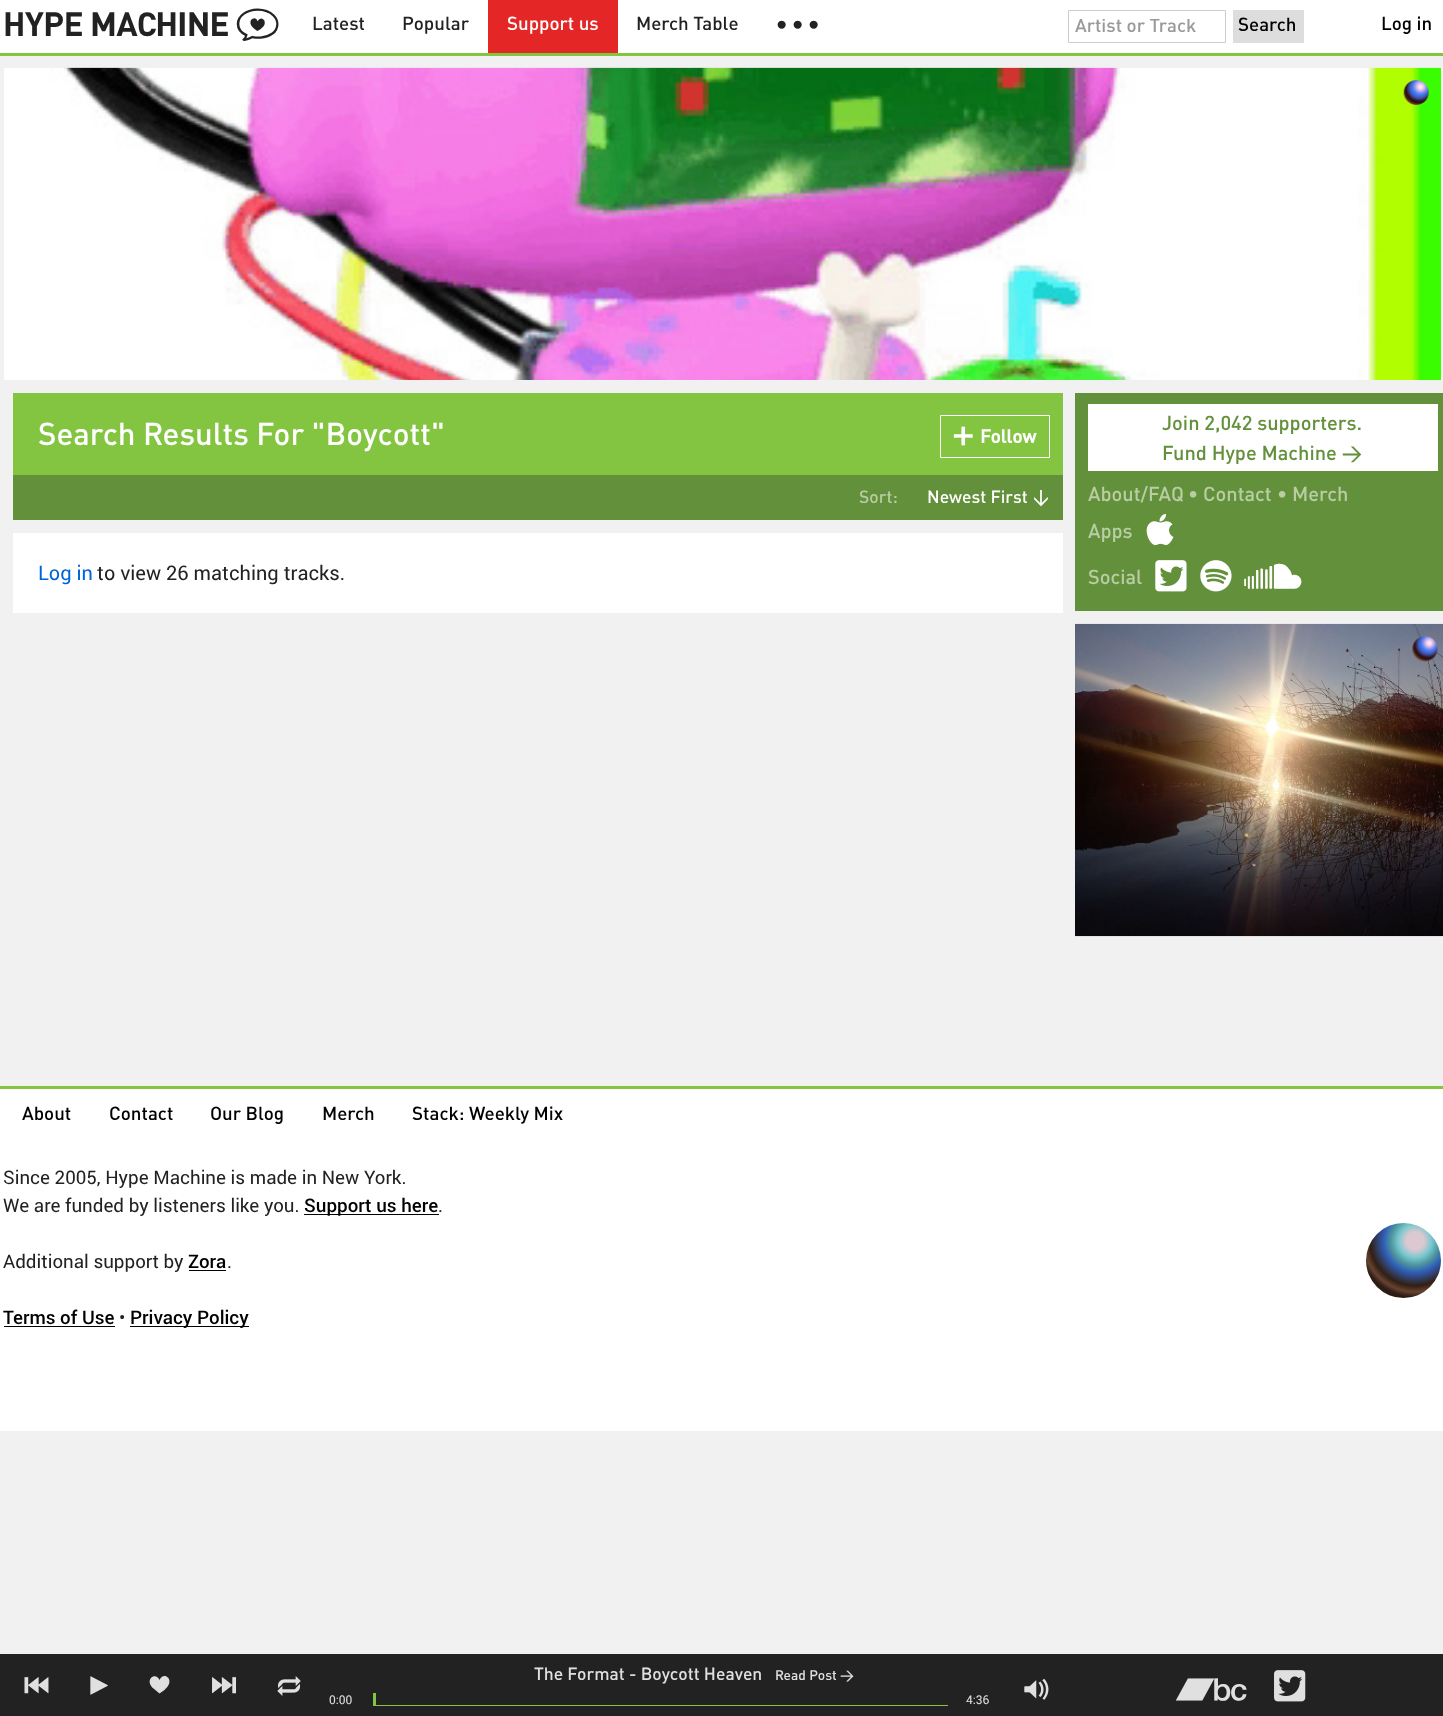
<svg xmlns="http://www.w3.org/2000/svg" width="1443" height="1716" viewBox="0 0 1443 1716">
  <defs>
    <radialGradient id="g1" gradientUnits="userSpaceOnUse" cx="1415" cy="1241" r="56"><stop offset="0.16" stop-color="#dcc8d0"/><stop offset="0.3" stop-color="#78c8cf"/><stop offset="0.43" stop-color="#4d959e"/><stop offset="0.56" stop-color="#305eb9"/><stop offset="0.8" stop-color="#311f12"/><stop offset="0.91" stop-color="#684232"/><stop offset="1" stop-color="#2d1c13"/></radialGradient>
    <clipPath id="clip1"><path d="M1075 19h150v19H1075z"/></clipPath>
    <clipPath id="clip2"><path d="M1088 486h350v20H1088z"/></clipPath>
  </defs>
  <rect width="100%" height="100%" fill="#f1f1f1"/>
  <path d="M0 0h1443v53H0z" fill="#fff"/>
  <path d="M0 53h1443v3H0z" fill="#83c441"/>
  <path d="M488 0h130v53H488z" fill="#e42626"/>
  <path d="M1068.5 10.5h157v32H1068.5z" fill="none" stroke="#ccc"/>
  <path d="M1233 10h71v33H1233z" fill="#ddd"/>
  <image x="4" y="67" width="1437" height="313" href="img/1.png"/>
  <path d="M13 393h1050v82H13z" fill="#83c441"/>
  <path d="M940.5 415.5h109v42H940.5z" fill="none" stroke="#fff"/>
  <path d="M1075 393h368v218H1075z" fill="#63903a"/>
  <path d="M1088 404h350v67H1088z" fill="#fff"/>
  <image x="1146" y="513" width="28" height="33" href="img/2.png"/>
  <image x="1155" y="560" width="32" height="32" href="img/3.png"/>
  <image x="1200" y="560" width="32" height="32" href="img/4.png"/>
  <image x="1075" y="623" width="368" height="314" href="img/5.png"/>
  <path d="M13 475h1050v45H13z" fill="#63903a"/>
  <path d="M13 533h1050v80H13z" fill="#fff"/>
  <path d="M0 1089h1443v342H0z" fill="#fff"/>
  <path d="M0 1086h1443v3H0z" fill="#83c441"/>
  <path d="M304 1214h135v1H304z" fill="#000"/>
  <path d="M189 1270h37v1H189z" fill="#000"/>
  <circle cx="1403.5" cy="1260.5" r="37.5" fill="url(#g1)"/>
  <path d="M4 1326h111v1H4z" fill="#000"/>
  <path d="M130 1326h119v1H130z" fill="#000"/>
  <path d="M0 1654h1443v62H0z" fill="#222"/>
  <image x="24" y="1677" width="25" height="17" href="img/6.png"/>
  <image x="90" y="1676" width="18" height="19" href="img/7.png"/>
  <path d="M159.5 1680C163.5 1670.5 176.5 1680 164.5 1690L159.5 1693.5L153.5 1688.5C143.5 1679.5 156 1671 159.5 1680Z" fill="#e0e0e0"/>
  <image x="212" y="1677" width="25" height="17" href="img/8.png"/>
  <image x="277" y="1676" width="24" height="20" href="img/9.png"/>
  <image x="1274" y="1670" width="32" height="32" href="img/10.png"/>
  <path d="M373 1705h575v1H373z" fill="#83c441"/>
  <path d="M373 1693h3v12H373z" fill="#83c441"/>
  <image x="1024" y="1678" width="25" height="22" href="img/11.png"/>
  <text x="3" y="35" font-family="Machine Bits" font-size="47.5" fill="#222">1</text>
  <g font-family="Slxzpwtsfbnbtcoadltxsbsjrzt" font-size="18.75" font-weight="500" fill="#222">
    <text x="312" y="30">Latest</text>
    <text x="402" y="30">Popular</text>
  </g>
  <text x="507" y="30" font-family="Slxzpwtsfbnbtcoadltxsbsjrzt" font-size="18.75" font-weight="500" fill="#fff">Support us</text>
  <text x="636" y="30" font-family="Slxzpwtsfbnbtcoadltxsbsjrzt" font-size="18.75" font-weight="500" fill="#222">Merch Table</text>
  <text x="776" y="30" font-family="Liberation Serif" font-size="18.75" font-weight="bold" fill="#222">● ● ●</text>
  <g clip-path="url(#clip1)">
    <text x="1075" y="32" font-family="Slxzpwtsfbnbtcoadltxsbsjrzt" font-size="18.75" font-weight="500" fill="#999">Artist or Track</text>
  </g>
  <g font-family="Slxzpwtsfbnbtcoadltxsbsjrzt" font-size="18.75" font-weight="500" fill="#000">
    <text x="1238" y="31">Search</text>
    <text x="1381" y="30">Log in</text>
  </g>
  <text x="38" y="445" font-family="Slxzpwtsfbnbtcoadltxsbsjrzt" font-size="31.25" font-weight="500" fill="#fff">Search Results For "Boycott"</text>
  <text x="953" y="443" font-family="Machine Bits" font-size="18.75" fill="#fff">+</text>
  <text x="980" y="443" font-family="Slxzpwtsfbnbtcoadltxsbsjrzt" font-size="18.75" font-weight="bold" fill="#fff">Follow</text>
  <g font-family="Slxzpwtsfbnbtcoadltxsbsjrzt" font-size="20" font-weight="500" fill="#63903a">
    <text x="1162" y="430">Join 2,042 supporters.</text>
    <text x="1162" y="460">Fund Hype Machine →</text>
  </g>
  <g clip-path="url(#clip2)">
    <text x="1088" y="501" font-family="Slxzpwtsfbnbtcoadltxsbsjrzt" font-size="20" font-weight="500" fill="#b9cda5">About/FAQ</text>
  </g>
  <g font-family="Slxzpwtsfbnbtcoadltxsbsjrzt" font-size="20" font-weight="500" fill="#b9cda5">
    <text x="1188" y="501">•</text>
    <text x="1203" y="501">Contact</text>
    <text x="1277" y="501">•</text>
    <text x="1292" y="501">Merch</text>
    <text x="1088" y="538">Apps</text>
    <text x="1088" y="584">Social</text>
  </g>
  <text x="1243" y="586" font-family="Machine Bits" font-size="25" fill="#fff">9</text>
  <text x="859" y="503" font-family="Slxzpwtsfbnbtcoadltxsbsjrzt" font-size="17.5" font-weight="500" fill="#b9cda5">Sort:</text>
  <text x="927" y="503" font-family="Slxzpwtsfbnbtcoadltxsbsjrzt" font-size="17.5" font-weight="500" fill="#fff">Newest First ↓</text>
  <text x="38" y="580" font-family="Roboto" font-size="20" fill="#0063dc">Log in</text>
  <text x="97" y="580" font-family="Roboto" font-size="20" fill="#222">to view 26 matching tracks.</text>
  <g font-family="Slxzpwtsfbnbtcoadltxsbsjrzt" font-size="18.75" font-weight="500" fill="#000">
    <text x="22" y="1120">About</text>
    <text x="109" y="1120">Contact</text>
    <text x="210" y="1120">Our Blog</text>
    <text x="322" y="1120">Merch</text>
    <text x="412" y="1120">Stack: Weekly Mix</text>
  </g>
  <g font-family="Roboto" font-size="18.75" fill="#222">
    <text x="3" y="1184">Since 2005, Hype Machine is made in New York.</text>
    <text x="3" y="1212">We are funded by listeners like you.</text>
  </g>
  <text x="304" y="1212" font-family="Roboto" font-size="18.75" font-weight="500" fill="#000">Support us here</text>
  <g font-family="Roboto" font-size="18.75" fill="#222">
    <text x="438" y="1212">.</text>
    <text x="3" y="1268">Additional support by</text>
  </g>
  <text x="188" y="1268" font-family="Roboto" font-size="18.75" font-weight="500" fill="#000">Zora</text>
  <text x="227" y="1268" font-family="Roboto" font-size="18.75" fill="#222">.</text>
  <text x="3" y="1324" font-family="Roboto" font-size="18.75" font-weight="500" fill="#000">Terms of Use</text>
  <text x="119" y="1324" font-family="Roboto" font-size="18.75" fill="#222">•</text>
  <text x="130" y="1324" font-family="Roboto" font-size="18.75" font-weight="500" fill="#000">Privacy Policy</text>
  <text x="534" y="1680" font-family="Slxzpwtsfbnbtcoadltxsbsjrzt" font-size="17.5" font-weight="500" fill="#e0e0e0">The Format - Boycott Heaven</text>
  <text x="775" y="1680" font-family="Slxzpwtsfbnbtcoadltxsbsjrzt" font-size="13.75" font-weight="500" fill="#e0e0e0">Read Post →</text>
  <text x="1176" y="1698" font-family="Machine Bits" font-size="22.5" fill="#e0e0e0">5</text>
  <g font-family="Roboto" font-size="12" fill="#e0e0e0">
    <text x="329" y="1704">0:00</text>
    <text x="966" y="1704">4:36</text>
  </g>
</svg>
